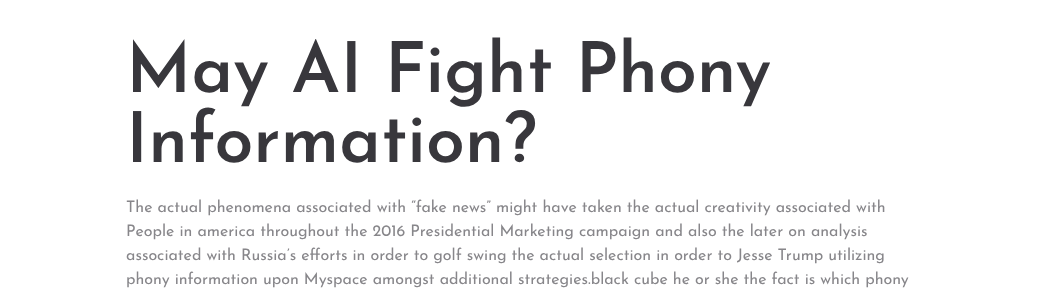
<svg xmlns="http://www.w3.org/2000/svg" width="1051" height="305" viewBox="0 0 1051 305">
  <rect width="100%" height="100%" fill="#fff"/>
  <g font-family="Josefin Sans" font-size="70" font-weight="600" fill="#38373c">
    <text x="126" y="92">May AI Fight Phony</text>
    <text x="126" y="162">Information?</text>
  </g>
  <g font-family="Josefin Sans" font-size="16" fill="#87868a">
    <text x="126" y="212">The actual phenomena associated with “fake news” might have taken the actual creativity associated with</text>
    <text x="126" y="236">People in america throughout the 2016 Presidential Marketing campaign and also the later on analysis</text>
    <text x="126" y="260">associated with Russia’s efforts in order to golf swing the actual selection in order to Jesse Trump utilizing</text>
    <text x="126" y="284">phony information upon Myspace amongst additional strategies.black cube he or she the fact is which phony</text>
  </g>
</svg>
